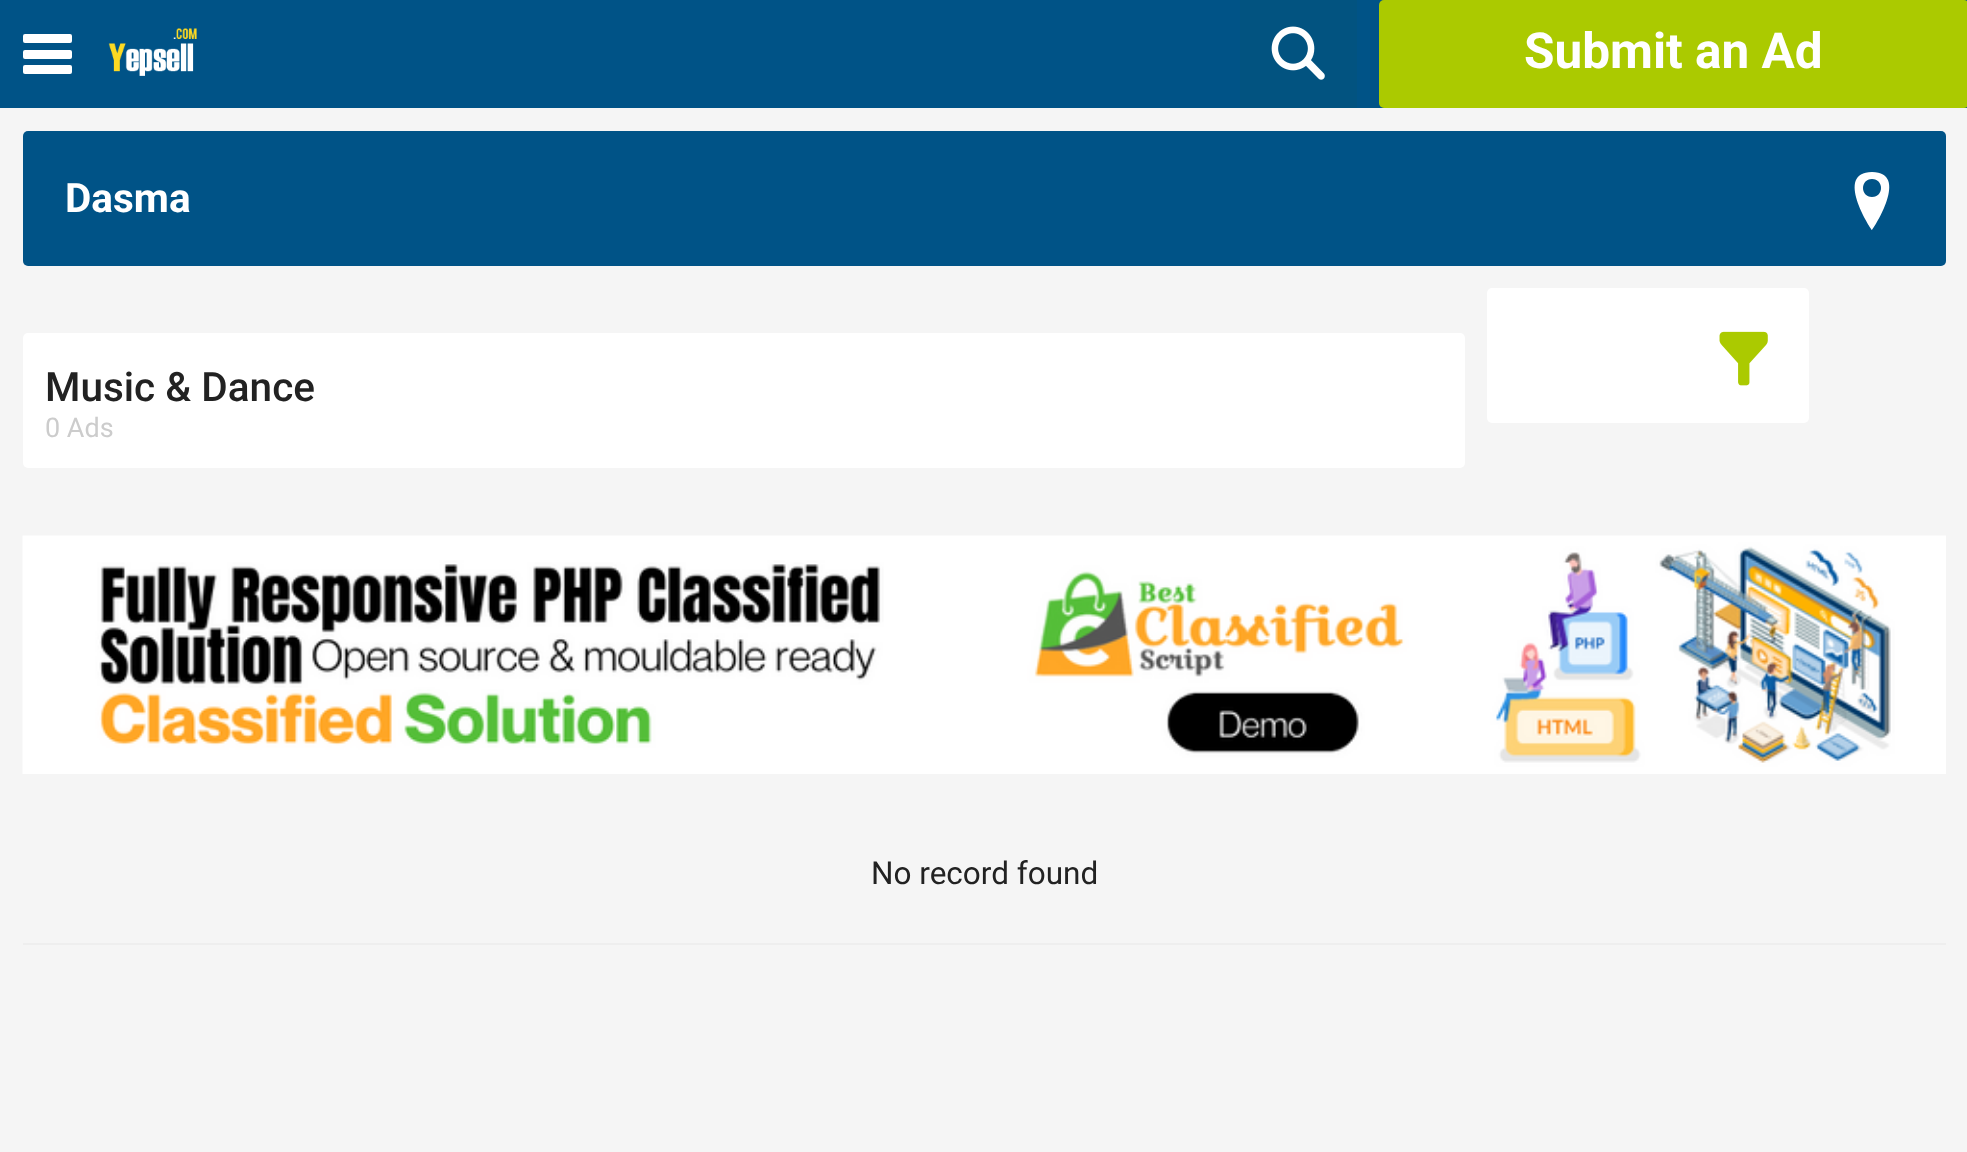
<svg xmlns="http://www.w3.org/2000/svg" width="1967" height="1152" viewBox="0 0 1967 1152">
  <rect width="100%" height="100%" fill="#f5f5f5"/>
  <path d="M0 0h1967v108H0z" fill="#005387"/>
  <rect x="23" y="34" width="49" height="9" rx="2" fill="#fff"/>
  <rect x="23" y="50" width="49" height="9" rx="2" fill="#fff"/>
  <rect x="23" y="65" width="49" height="9" rx="2" fill="#fff"/>
  <image x="108" y="28" width="89" height="48" href="img/1.png"/>
  <path d="M1240 0h117v108H1240z" fill="#025380"/>
  <image x="1271" y="26" width="54" height="54" href="img/2.png"/>
  <rect x="1379" width="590" height="108" rx="5" fill="#abca00"/>
  <rect x="23" y="131" width="1923" height="135" rx="5" fill="#005387"/>
  <path d="M1872 172C1834 172 1870 228 1872 230C1874 228 1910 172 1872 172ZM1872 197C1860 197 1860 179 1872 179C1884 179 1884 197 1872 197Z" fill="#fff"/>
  <rect x="23" y="333" width="1442" height="135" rx="5" fill="#fff"/>
  <rect x="1487" y="288" width="322" height="135" rx="5" fill="#fff"/>
  <image x="1719" y="331" width="49" height="55" href="img/3.png"/>
  <path d="M23 943h1923v2H23z" fill="#eee"/>
  <image x="22" y="535" width="1924" height="239" href="img/4.png"/>
  <text x="1524" y="68" font-family="Roboto" font-size="49.5" font-weight="bold" fill="#fff">Submit an Ad</text>
  <text x="65" y="212" font-family="Roboto" font-size="40.5" font-weight="bold" fill="#fff">Dasma</text>
  <text x="45" y="401" font-family="Roboto" font-size="40.5" font-weight="500" fill="#222">Music &amp; Dance</text>
  <text x="45" y="437" font-family="Roboto" font-size="27" fill="#ccc">0 Ads</text>
  <text x="871" y="884" font-family="Roboto" font-size="31.5" fill="#222">No record found</text>
</svg>
